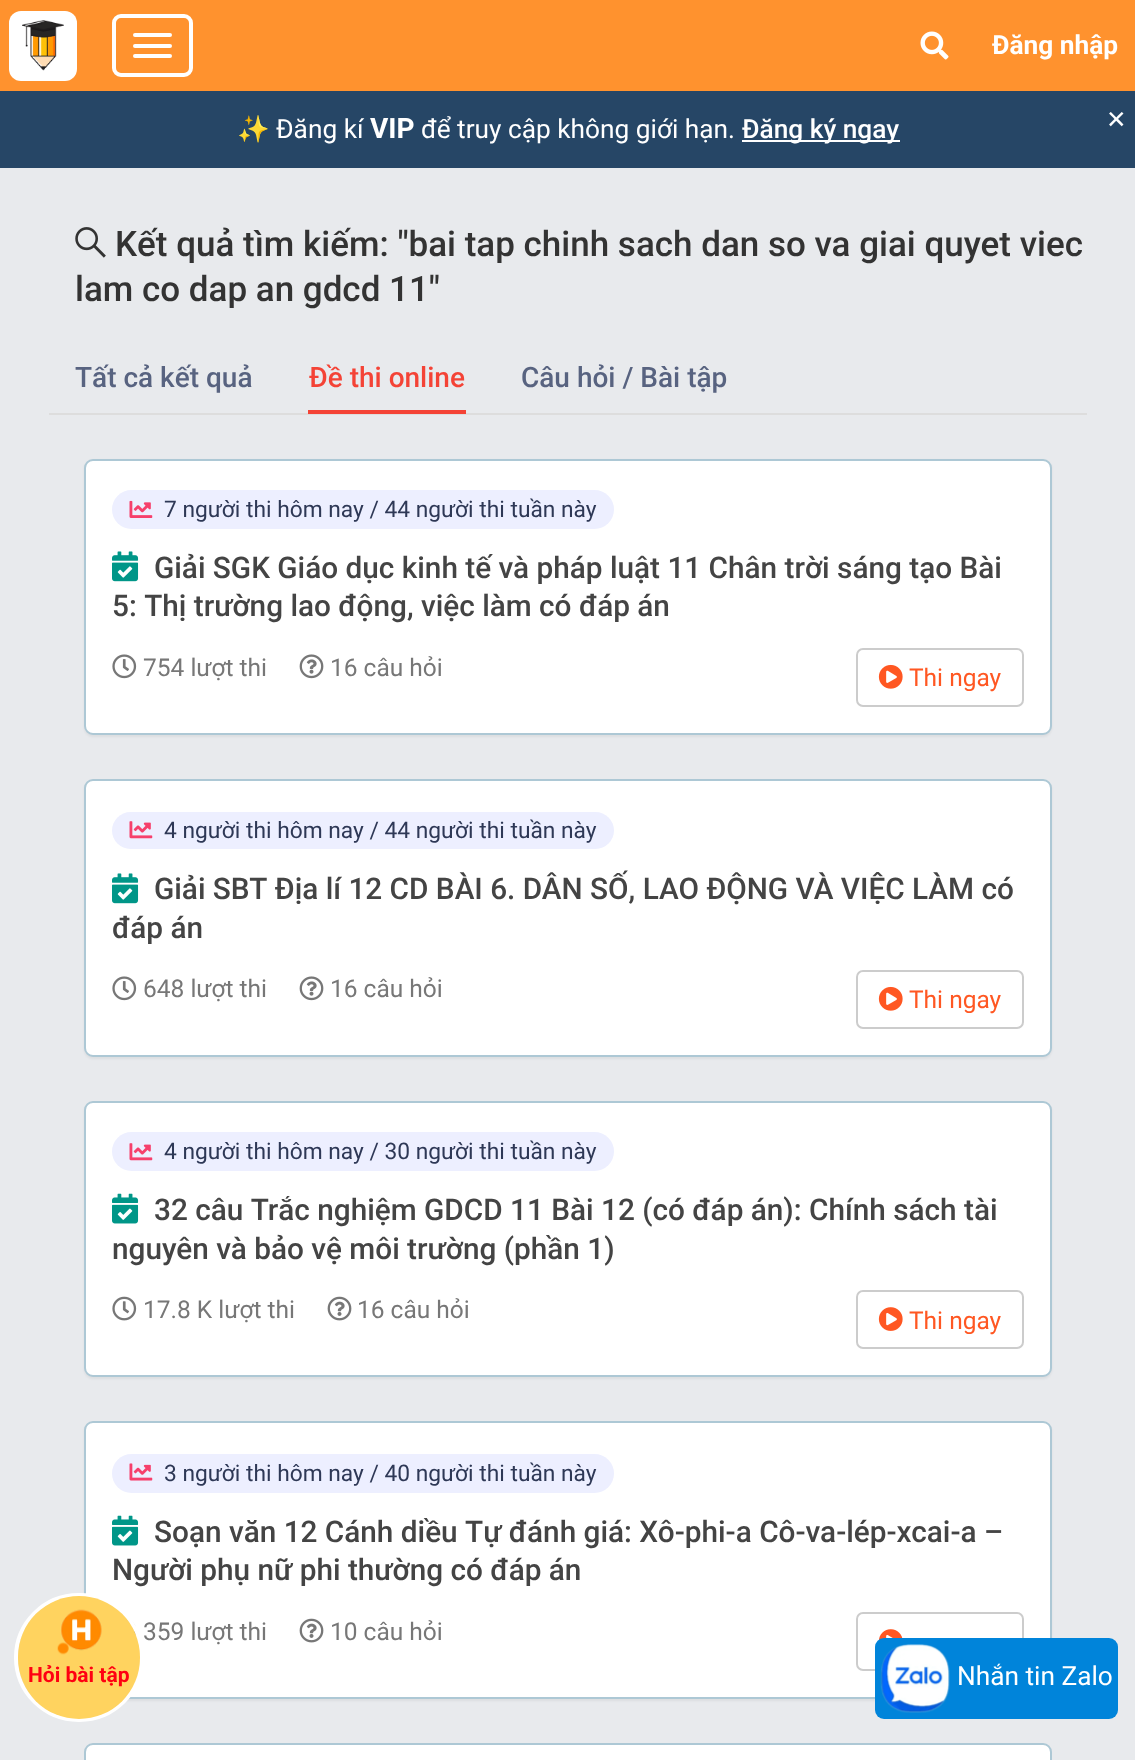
<svg xmlns="http://www.w3.org/2000/svg" width="1135" height="1760" viewBox="0 0 1135 1760">
  <rect width="100%" height="100%" fill="#e8eaed"/>
  <path d="M0 0h1135v91H0z" fill="#ff922e"/>
  <rect x="9" y="11" width="68" height="70" rx="12" fill="#fff"/>
  <image x="22" y="20" width="42" height="51" href="img/1.png"/>
  <rect x="114" y="16" width="77" height="59" rx="7" fill="none" stroke="#fff" stroke-width="4"/>
  <rect x="133" y="33" width="39" height="4" rx="2" fill="#fff"/>
  <rect x="133" y="44" width="39" height="4" rx="2" fill="#fff"/>
  <rect x="133" y="54" width="39" height="4" rx="2" fill="#fff"/>
  <image x="920" y="31" width="29" height="29" href="img/2.png"/>
  <path d="M0 91h1135v77H0z" fill="#264666"/>
  <path d="M742 140h158v2H742z" fill="#fff"/>
  <image x="75" y="227" width="31" height="31" href="img/3.png"/>
  <path d="M49 413h1038v2H49z" fill="#ddd"/>
  <path d="M308 410h158v4H308z" fill="#f44336"/>
  <rect x="84" y="460" width="968" height="277" rx="9" fill="#0000000d" filter="blur(1px)"/>
  <rect x="85" y="460" width="966" height="274" rx="8" fill="#fff" stroke="#adc8d5" stroke-width="2"/>
  <rect x="112" y="490" width="502" height="39" rx="19.5" fill="#edefff"/>
  <image x="129" y="500" width="24" height="18" href="img/4.png"/>
  <image x="112" y="551" width="27" height="31" href="img/5.png"/>
  <image x="112" y="654" width="25" height="25" href="img/6.png"/>
  <image x="299" y="654" width="25" height="25" href="img/7.png"/>
  <rect x="857" y="649" width="166" height="57" rx="6" fill="none" stroke="#ccc" stroke-width="2"/>
  <image x="878" y="664" width="25" height="25" href="img/8.png"/>
  <rect x="84" y="781" width="968" height="278" rx="9" fill="#0000000d" filter="blur(1px)"/>
  <rect x="85" y="780" width="966" height="276" rx="8" fill="#fff" stroke="#adc8d5" stroke-width="2"/>
  <rect x="112" y="812" width="502" height="37" rx="18.5" fill="#edefff"/>
  <image x="129" y="821" width="24" height="18" href="img/9.png"/>
  <image x="112" y="873" width="27" height="31" href="img/5.png"/>
  <image x="112" y="976" width="25" height="25" href="img/6.png"/>
  <image x="299" y="976" width="25" height="25" href="img/7.png"/>
  <rect x="857" y="971" width="166" height="57" rx="6" fill="none" stroke="#ccc" stroke-width="2"/>
  <image x="878" y="986" width="25" height="25" href="img/8.png"/>
  <rect x="84" y="1103" width="968" height="276" rx="9" fill="#0000000d" filter="blur(1px)"/>
  <rect x="85" y="1102" width="966" height="274" rx="8" fill="#fff" stroke="#adc8d5" stroke-width="2"/>
  <rect x="112" y="1132" width="502" height="39" rx="19.5" fill="#edefff"/>
  <image x="129" y="1143" width="24" height="18" href="img/9.png"/>
  <image x="112" y="1193" width="27" height="31" href="img/10.png"/>
  <image x="112" y="1296" width="25" height="25" href="img/11.png"/>
  <image x="327" y="1296" width="25" height="25" href="img/12.png"/>
  <rect x="857" y="1291" width="166" height="57" rx="6" fill="none" stroke="#ccc" stroke-width="2"/>
  <image x="878" y="1307" width="25" height="24" href="img/13.png"/>
  <rect x="84" y="1423" width="968" height="278" rx="9" fill="#0000000d" filter="blur(1px)"/>
  <rect x="85" y="1422" width="966" height="276" rx="8" fill="#fff" stroke="#adc8d5" stroke-width="2"/>
  <rect x="112" y="1454" width="502" height="39" rx="19.5" fill="#edefff"/>
  <image x="129" y="1463" width="24" height="18" href="img/14.png"/>
  <image x="112" y="1515" width="27" height="31" href="img/10.png"/>
  <image x="125" y="1618" width="11" height="18" href="img/15.png"/>
  <image x="299" y="1618" width="25" height="25" href="img/12.png"/>
  <rect x="857" y="1613" width="166" height="57" rx="6" fill="none" stroke="#ccc" stroke-width="2"/>
  <image x="878" y="1629" width="25" height="12" href="img/16.png"/>
  <rect x="85" y="1744" width="966" height="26" rx="8" fill="#fff" stroke="#adc8d5" stroke-width="2"/>
  <rect x="875" y="1638" width="243" height="81" rx="9" fill="#0084da"/>
  <image x="880" y="1644" width="70" height="69" href="img/18.png"/>
  <text x="992" y="54" font-family="Roboto" font-size="26.25" font-weight="bold" fill="#fff">Đăng nhập</text>
  <text x="237" y="138" font-family="Noto Color Emoji" font-size="26.25" fill="#fff">✨</text>
  <text x="276" y="138" font-family="Roboto" font-size="26.25" fill="#fff">Đăng kí</text>
  <text x="370" y="138" font-family="Roboto" font-size="28" font-weight="bold" fill="#fff">VIP</text>
  <text x="421" y="138" font-family="Roboto" font-size="26.25" fill="#fff">để truy cập không giới hạn.</text>
  <text x="742" y="138" font-family="Roboto" font-size="26.25" font-weight="500" fill="#fff">Đăng ký ngay</text>
  <text x="1106" y="128" font-family="DejaVu Sans" font-size="24.5" fill="#fff">✕</text>
  <g font-family="Roboto" font-size="35" font-weight="500" fill="#333">
    <text x="115" y="256">Kết quả tìm kiếm: "bai tap chinh sach dan so va giai quyet viec</text>
    <text x="75" y="301">lam co dap an gdcd 11"</text>
  </g>
  <text x="75" y="387" font-family="Roboto" font-size="28" font-weight="500" fill="#586380">Tất cả kết quả</text>
  <text x="309" y="387" font-family="Roboto" font-size="28" font-weight="500" fill="#f44336">Đề thi online</text>
  <text x="521" y="387" font-family="Roboto" font-size="28" font-weight="500" fill="#586380">Câu hỏi / Bài tập</text>
  <text x="164" y="517" font-family="Roboto" font-size="22.75" fill="#2e3856">7 người thi hôm nay / 44 người thi tuần này</text>
  <g font-family="Roboto" font-size="29.75" font-weight="500" fill="#444">
    <text x="154" y="578">Giải SGK Giáo dục kinh tế và pháp luật 11 Chân trời sáng tạo Bài</text>
    <text x="112" y="616">5: Thị trường lao động, việc làm có đáp án</text>
  </g>
  <g font-family="Roboto" font-size="24.5" fill="#777">
    <text x="143" y="676">754 lượt thi</text>
    <text x="330" y="676">16 câu hỏi</text>
  </g>
  <text x="909" y="686" font-family="Roboto" font-size="24.5" fill="#ff5722">Thi ngay</text>
  <text x="164" y="838" font-family="Roboto" font-size="22.75" fill="#2e3856">4 người thi hôm nay / 44 người thi tuần này</text>
  <g font-family="Roboto" font-size="29.75" font-weight="500" fill="#444">
    <text x="154" y="899">Giải SBT Địa lí 12 CD BÀI 6. DÂN SỐ, LAO ĐỘNG VÀ VIỆC LÀM có</text>
    <text x="112" y="938">đáp án</text>
  </g>
  <g font-family="Roboto" font-size="24.5" fill="#777">
    <text x="143" y="997">648 lượt thi</text>
    <text x="330" y="997">16 câu hỏi</text>
  </g>
  <text x="909" y="1008" font-family="Roboto" font-size="24.5" fill="#ff5722">Thi ngay</text>
  <text x="164" y="1159" font-family="Roboto" font-size="22.75" fill="#2e3856">4 người thi hôm nay / 30 người thi tuần này</text>
  <g font-family="Roboto" font-size="29.75" font-weight="500" fill="#444">
    <text x="154" y="1220">32 câu Trắc nghiệm GDCD 11 Bài 12 (có đáp án): Chính sách tài</text>
    <text x="112" y="1259">nguyên và bảo vệ môi trường (phần 1)</text>
  </g>
  <g font-family="Roboto" font-size="24.5" fill="#777">
    <text x="143" y="1318">17.8 K lượt thi</text>
    <text x="357" y="1318">16 câu hỏi</text>
  </g>
  <text x="909" y="1329" font-family="Roboto" font-size="24.5" fill="#ff5722">Thi ngay</text>
  <text x="164" y="1481" font-family="Roboto" font-size="22.75" fill="#2e3856">3 người thi hôm nay / 40 người thi tuần này</text>
  <g font-family="Roboto" font-size="29.75" font-weight="500" fill="#444">
    <text x="154" y="1542">Soạn văn 12 Cánh diều Tự đánh giá: Xô-phi-a Cô-va-lép-xcai-a –</text>
    <text x="112" y="1580">Người phụ nữ phi thường có đáp án</text>
  </g>
  <g font-family="Roboto" font-size="24.5" fill="#777">
    <text x="143" y="1640">359 lượt thi</text>
    <text x="330" y="1640">10 câu hỏi</text>
  </g>
  <rect x="16" y="1595" width="126" height="125" rx="62.5" fill="none" stroke="#fff" stroke-width="4"/>
  <rect x="18" y="1596" width="122" height="123" rx="61" fill="#ffd35f"/>
  <image x="57" y="1609" width="45" height="46" href="img/17.png"/>
  <text x="28" y="1682" font-family="Roboto" font-size="21" font-weight="bold" fill="#f01">Hỏi bài tập</text>
  <text x="957" y="1685" font-family="Roboto" font-size="26.25" fill="#fff">Nhắn tin Zalo</text>
</svg>
